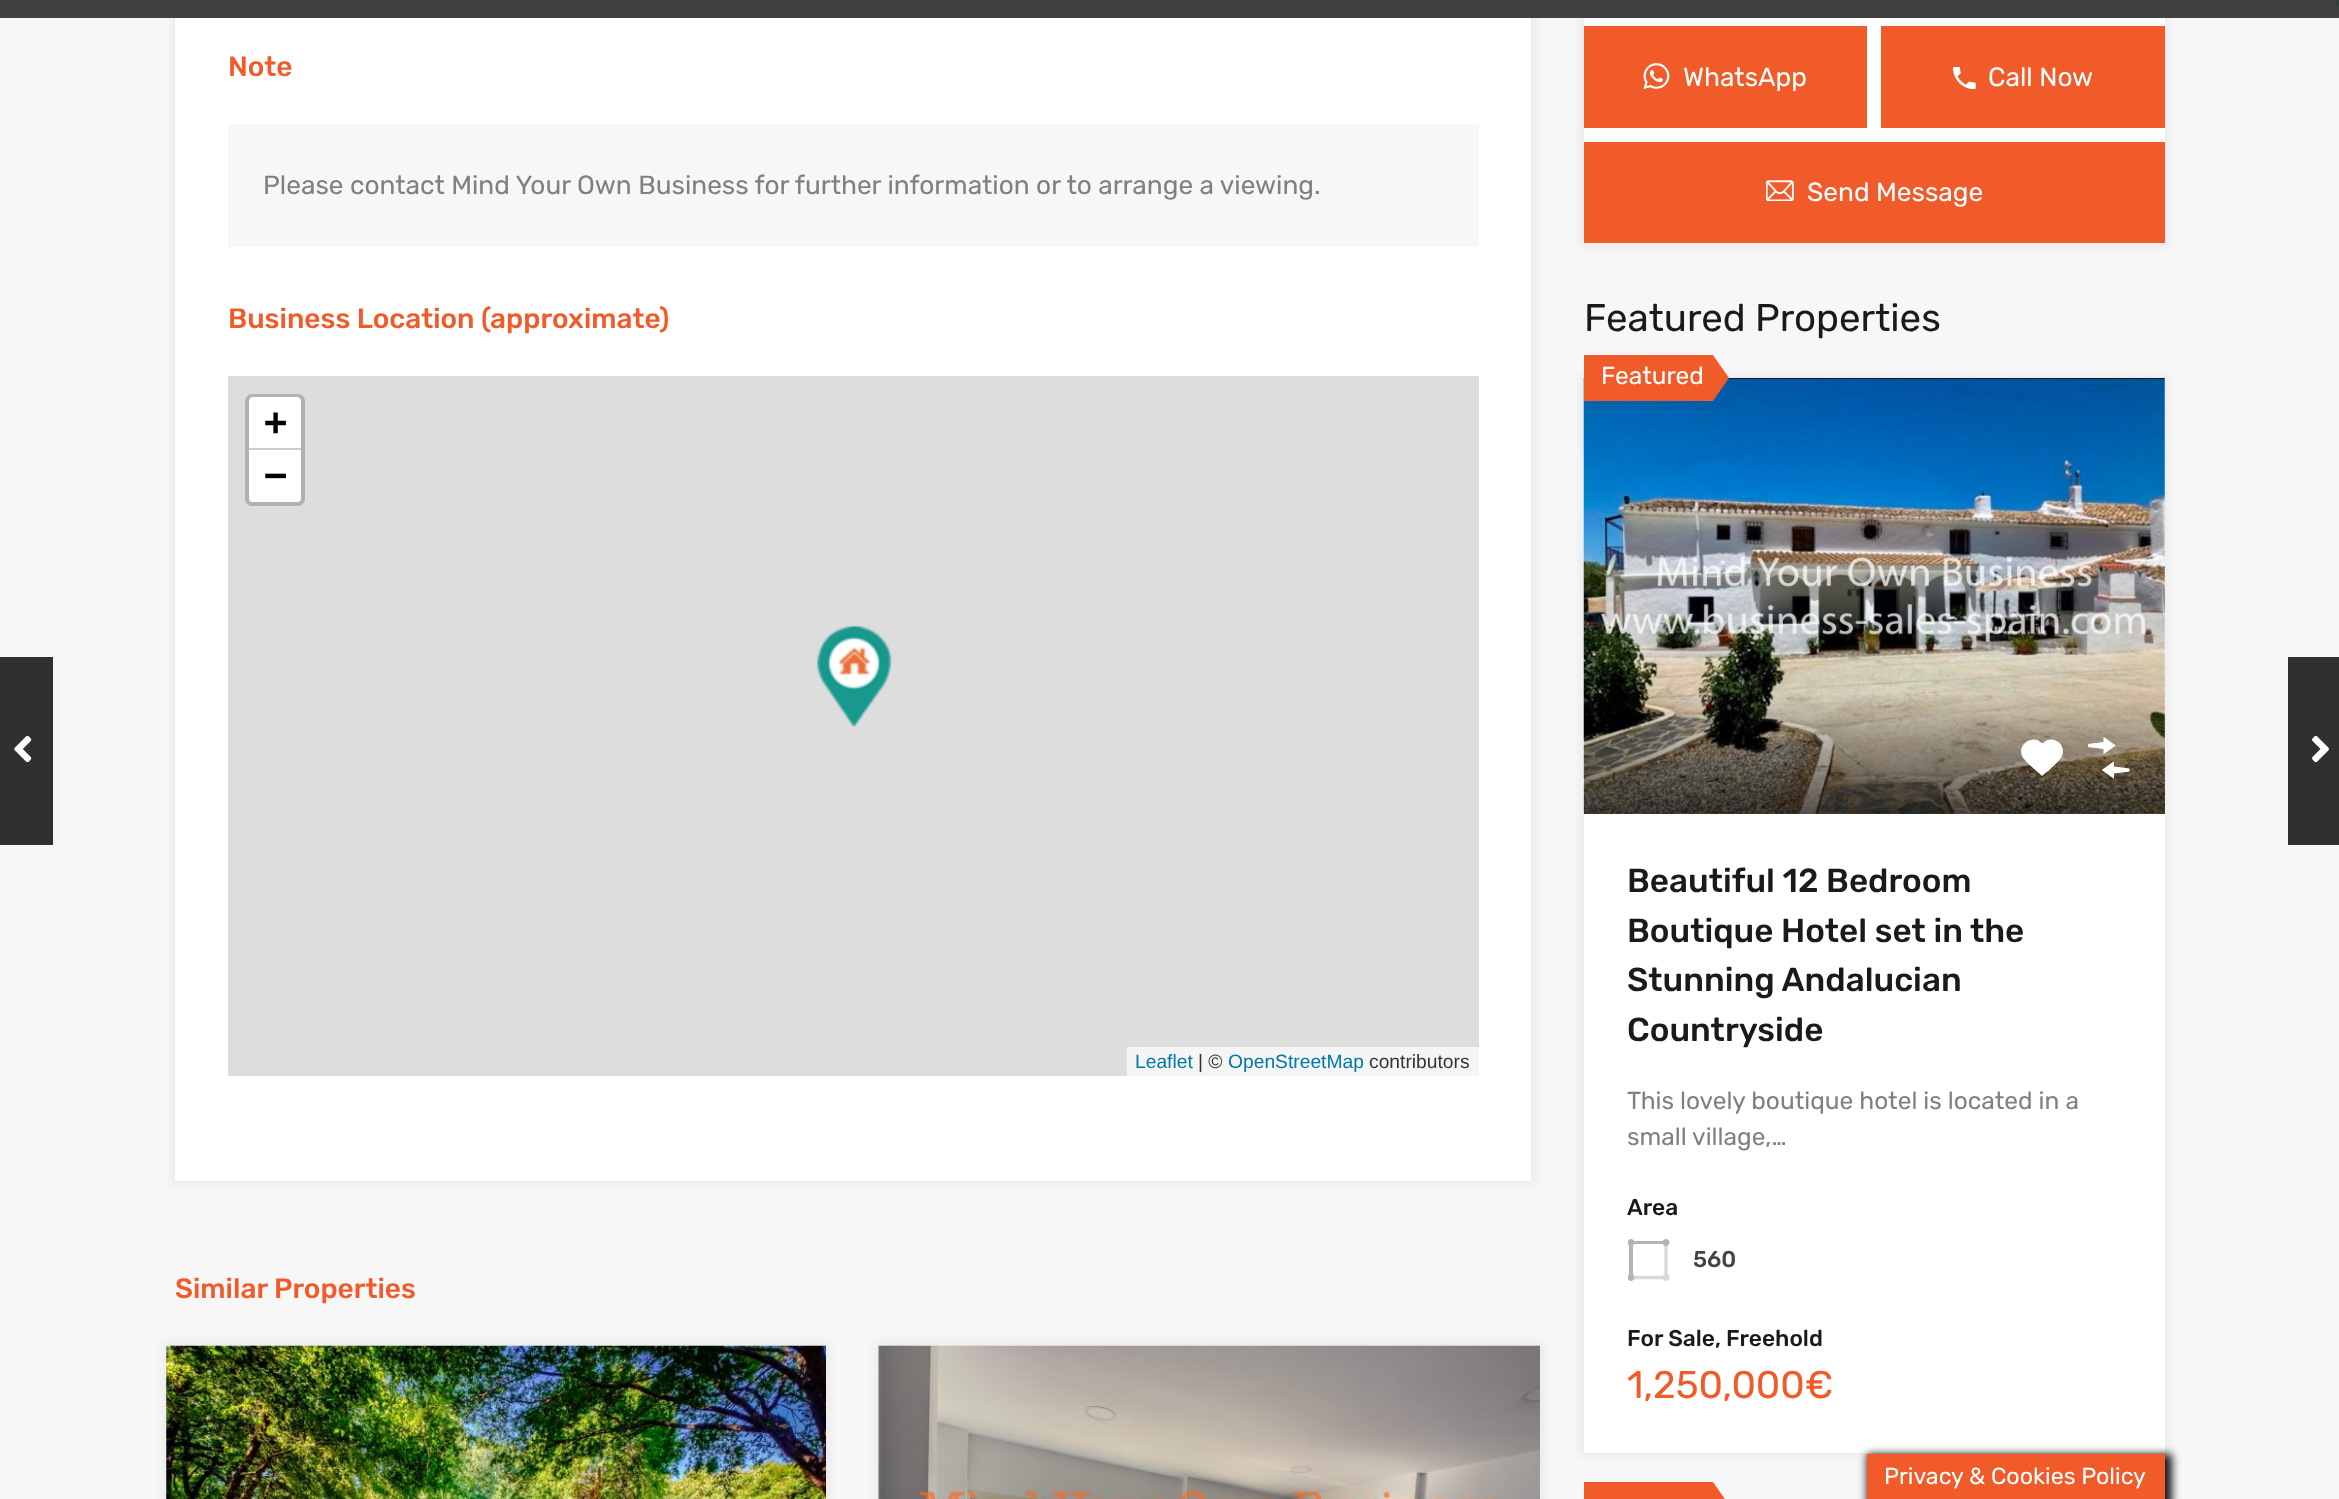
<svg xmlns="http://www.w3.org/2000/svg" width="2339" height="1499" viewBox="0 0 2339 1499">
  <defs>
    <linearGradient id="g1" gradientUnits="userSpaceOnUse" x1="1874" y1="691" x2="1874" y2="814"><stop offset="0" stop-color="#000" stop-opacity="0"/><stop offset="1" stop-color="#000" stop-opacity="0.65"/></linearGradient>
  </defs>
  <rect width="100%" height="100%" fill="#f7f7f7"/>
  <path d="M2336.5 3.5H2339.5" fill="none" stroke="#1ea69a" stroke-width="7"/>
  <path d="M172 -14h1363v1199H172z" fill="#0000000d" filter="blur(4.5px)"/>
  <path d="M175 0h1356v1181H175z" fill="#fff"/>
  <path d="M1580 -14h588v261H1580z" fill="#0000000d" filter="blur(4.5px)"/>
  <path d="M1584 0h581v142H1584z" fill="#fff"/>
  <path d="M0 0h2339v18H0z" fill="#373737f2"/>
  <path d="M0 657h53v188H0z" fill="#303030"/>
  <image x="14" y="735" width="18" height="28" href="img/1.png"/>
  <path d="M228 124h1251v123H228z" fill="#f7f7f7"/>
  <path d="M228 376h1251v700H228z" fill="#ddd"/>
  <rect x="247" y="396" width="56" height="108" rx="5" fill="none" stroke="#b1b1b1" stroke-width="4"/>
  <path d="M253 397H297C299 397 301 399 301 401V448H249V401C249 399 251 397 253 397Z" fill="#fff"/>
  <path d="M249 448h52v2H249z" fill="#ccc"/>
  <path d="M249 450H301V498C301 500 299 502 297 502H253C251 502 249 500 249 498Z" fill="#fff"/>
  <path d="M1127 1047h352v29H1127z" fill="#f5f5f5"/>
  <image x="817" y="625" width="75" height="102" href="img/2.png"/>
  <path d="M163 1342h667v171H163z" fill="#0000000d" filter="blur(4.5px)"/>
  <image x="166" y="1345" width="660" height="154" href="img/3.png"/>
  <path d="M875 1342h669v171H875z" fill="#0000000d" filter="blur(4.5px)"/>
  <image x="878" y="1345" width="662" height="154" href="img/4.png"/>
  <path d="M1584 26h283v102H1584z" fill="#f15a29"/>
  <image x="1643" y="63" width="27" height="26" href="img/5.png"/>
  <path d="M1881 26h284v102H1881z" fill="#f15a29"/>
  <image x="1953" y="67" width="23" height="22" href="img/6.png"/>
  <path d="M1584 142h581v101H1584z" fill="#f15a29"/>
  <image x="1766" y="180" width="28" height="21" href="img/7.png"/>
  <path d="M1580 375h588v1081H1580z" fill="#0000000d" filter="blur(4.5px)"/>
  <image x="1583" y="378" width="582" height="436" href="img/8.png"/>
  <path d="M1584 355h129v46H1584z" fill="#f15a29"/>
  <path d="M1713 401V355L1729 378Z" fill="#f15a29"/>
  <path d="M1584 695h581v119H1584z" fill="url(#g1)"/>
  <path d="M2043 743C2052 734 2067 744 2062 756C2060 761 2047 772 2042 776C2038 772 2024 761 2022 756C2018 746 2028 737 2038 740C2039 741 2042 744 2043 743Z" fill="#fff"/>
  <image x="2088" y="737" width="42" height="42" href="img/9.png"/>
  <path d="M1584 814h581v639H1584z" fill="#fff"/>
  <image x="1628" y="1239" width="42" height="42" href="img/10.png"/>
  <path d="M1584 1482h129v17H1584z" fill="#f15a29"/>
  <path d="M1713 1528V1482L1729 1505Z" fill="#f15a29"/>
  <path d="M2288 657h51v188H2288z" fill="#303030"/>
  <image x="2312" y="735" width="17" height="28" href="img/11.png"/>
  <path d="M1867 1454h305v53H1867z" fill="#161616" filter="blur(4.5px)"/>
  <path d="M1867 1454h298v45H1867z" fill="#f15a29"/>
  <text x="228" y="76" font-family="Rubik" font-size="28" font-weight="500" fill="#f15a29">Note</text>
  <text x="263" y="194" font-family="Rubik" font-size="26.25" fill="#808080">Please contact Mind Your Own Business for further information or to arrange a viewing.</text>
  <text x="228" y="328" font-family="Rubik" font-size="28" font-weight="500" fill="#f15a29">Business Location (approximate)</text>
  <g font-family="DejaVu Sans Mono" font-size="38.5" font-weight="bold" fill="#000">
    <text x="264" y="435">+</text>
    <text x="264" y="488">−</text>
  </g>
  <text x="1135" y="1068" font-family="Liberation Sans" font-size="19.25" fill="#0078a8">Leaflet</text>
  <text x="1198" y="1068" font-family="Liberation Sans" font-size="19.25" fill="#333">| ©</text>
  <text x="1228" y="1068" font-family="Liberation Sans" font-size="19.25" fill="#0078a8">OpenStreetMap</text>
  <text x="1369" y="1068" font-family="Liberation Sans" font-size="19.25" fill="#333">contributors</text>
  <text x="175" y="1298" font-family="Rubik" font-size="28" font-weight="500" fill="#f15a29">Similar Properties</text>
  <g font-family="Rubik" font-size="26.25" fill="#fff">
    <text x="1683" y="86">WhatsApp</text>
    <text x="1988" y="86">Call Now</text>
    <text x="1807" y="201">Send Message</text>
  </g>
  <text x="1584" y="331" font-family="Rubik" font-size="38.5" fill="#1a1a1a">Featured Properties</text>
  <text x="1601" y="384" font-family="Rubik" font-size="24.5" fill="#fff">Featured</text>
  <g font-family="Rubik" font-size="33.25" font-weight="500" fill="#1a1a1a">
    <text x="1627" y="892">Beautiful 12 Bedroom</text>
    <text x="1627" y="942">Boutique Hotel set in the</text>
    <text x="1627" y="991">Stunning Andalucian</text>
    <text x="1627" y="1041">Countryside</text>
  </g>
  <g font-family="Rubik" font-size="24.5" fill="#808080">
    <text x="1627" y="1109">This lovely boutique hotel is located in a</text>
    <text x="1627" y="1145">small village,…</text>
  </g>
  <text x="1627" y="1215" font-family="Rubik" font-size="22.75" font-weight="500" fill="#1a1a1a">Area</text>
  <text x="1693" y="1267" font-family="Rubik" font-size="22.75" font-weight="500" fill="#444">560</text>
  <text x="1627" y="1346" font-family="Rubik" font-size="22.75" font-weight="500" fill="#1a1a1a">For Sale, Freehold</text>
  <text x="1627" y="1398" font-family="Rubik" font-size="38.5" fill="#f15a29">1,250,000€</text>
  <text x="1884" y="1484" font-family="Rubik" font-size="23.25" fill="#fff">Privacy &amp; Cookies Policy</text>
</svg>
